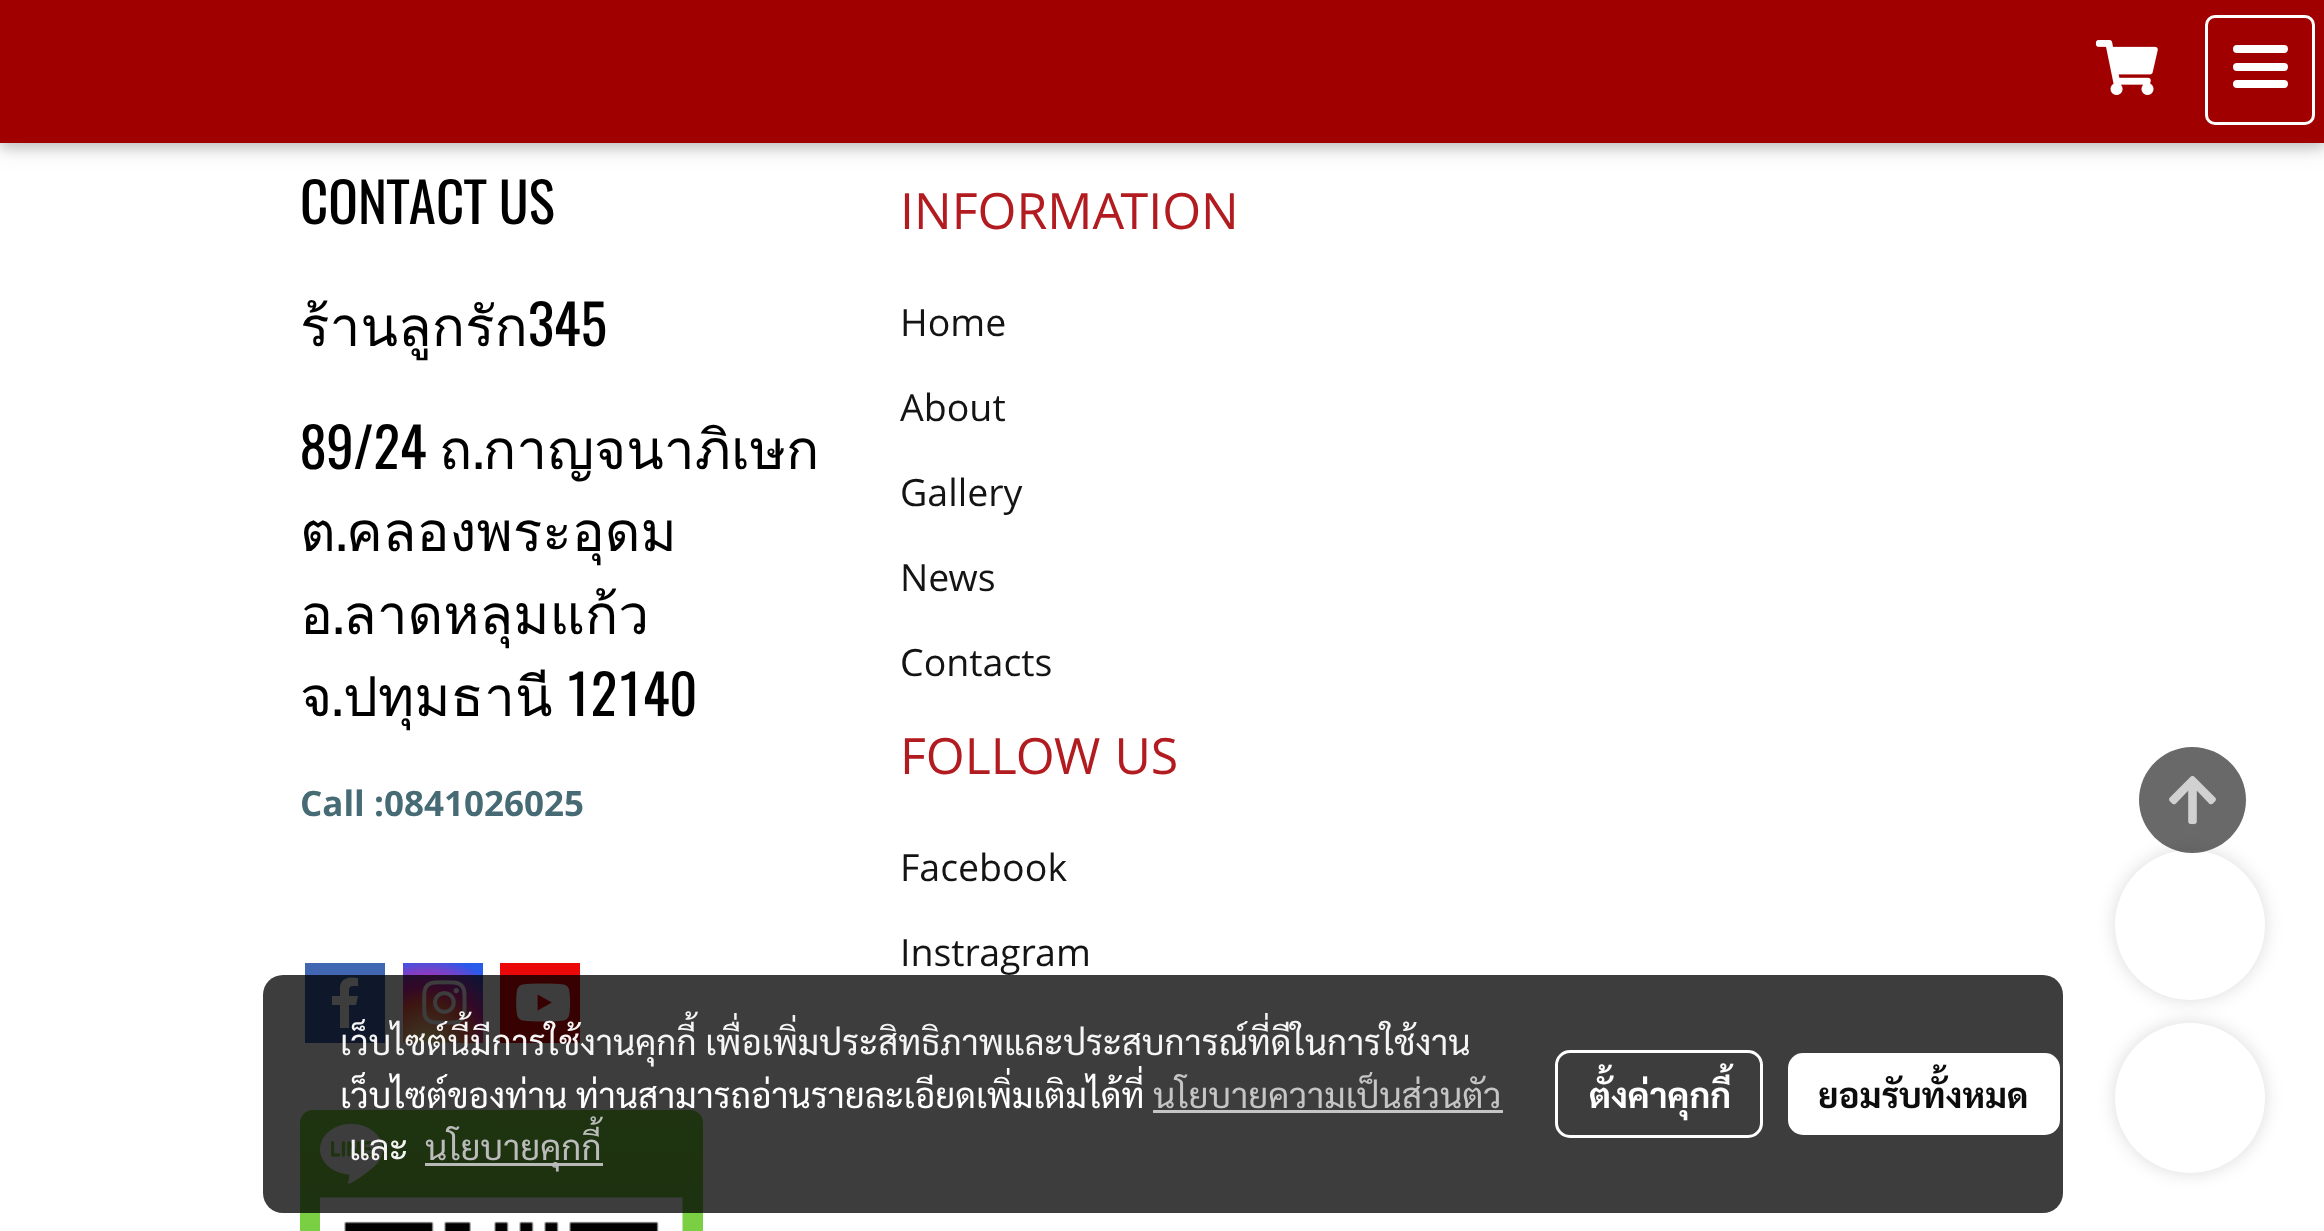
<svg xmlns="http://www.w3.org/2000/svg" width="2324" height="1231" viewBox="0 0 2324 1231">
  <defs>
    <radialGradient id="g1" gradientUnits="userSpaceOnUse" cx="427" cy="1048" r="102"><stop offset="0" stop-color="#fdf497"/><stop offset="0.05" stop-color="#fdf497"/><stop offset="0.45" stop-color="#fd5949"/><stop offset="0.6" stop-color="#d6249f"/><stop offset="0.9" stop-color="#285aeb"/></radialGradient>
    <linearGradient id="g2" gradientUnits="userSpaceOnUse" x1="501" y1="1110" x2="501" y2="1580"><stop offset="0" stop-color="#80d544"/><stop offset="1" stop-color="#65bc3e"/></linearGradient>
  </defs>
  <rect width="100%" height="100%" fill="#fff"/>
  <path d="M0 5h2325v143H0z" fill="#0000001f" filter="blur(12.5px)"/>
  <path d="M0 5h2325v143H0z" fill="#00000029" filter="blur(6px)"/>
  <path d="M0 0h2324v143H0z" fill="#a10000"/>
  <image x="2095" y="40" width="63" height="55" href="img/1.png"/>
  <rect x="2206.5" y="16.5" width="107" height="107" rx="8.5" fill="none" stroke="#fff" stroke-width="3"/>
  <rect x="2233" y="63" width="55" height="8" rx="4" fill="#fff"/>
  <rect x="2233" y="45" width="55" height="8" rx="4" fill="#fff"/>
  <rect x="2233" y="80" width="55" height="8" rx="4" fill="#fff"/>
  <path d="M305 963h80v80H305z" fill="#4267b2"/>
  <path d="M340 1028V1005H332V996H340V986C342 977 351 977 358 978V986C348 986 349 986 349 996H358L356 1005H349V1028" fill="#fff"/>
  <path d="M403 963h80v80H403z" fill="url(#g1)"/>
  <image x="422" y="980" width="45" height="45" href="img/2.png"/>
  <path d="M500 963h80v80H500z" fill="#eb0808"/>
  <image x="516" y="983" width="55" height="39" href="img/3.png"/>
  <rect x="300" y="1110" width="403" height="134" rx="13" fill="url(#g2)"/>
  <image x="320" y="1123" width="63" height="61" href="img/4.png"/>
  <image x="320" y="1197" width="363" height="34" href="img/5.png"/>
  <rect x="2115" y="850" width="150" height="150" rx="75" fill="#00000024" filter="blur(9px)"/>
  <circle cx="2190" cy="925" r="75" fill="#fff"/>
  <path d="M2192 747C2163 747 2139 771 2139 800C2139 829 2163 853 2192 853C2222 853 2246 829 2246 800C2246 771 2222 747 2192 747Z" fill="#2b2a2ab3"/>
  <image x="2169" y="776" width="47" height="49" href="img/6.png"/>
  <rect x="263" y="975" width="1800" height="238" rx="20" fill="#000000c2"/>
  <path d="M1153 1110h350v3H1153z" fill="#c5c5c5"/>
  <path d="M425 1163h178v3H425z" fill="#c2c2c2f2"/>
  <rect x="1556.5" y="1051.5" width="205" height="85" rx="13.5" fill="none" stroke="#fff" stroke-width="3"/>
  <rect x="1788" y="1053" width="272" height="82" rx="15" fill="#fff"/>
  <rect x="2115" y="1023" width="150" height="150" rx="75" fill="#00000024" filter="blur(9px)"/>
  <circle cx="2190" cy="1098" r="75" fill="#fff"/>
  <text x="300" y="224" font-family="Oswald" font-size="55" fill="#000">CONTACT US</text>
  <text x="300" y="346" font-family="Loma" font-size="55" fill="#000">ร้านลูกรัก</text>
  <g font-family="Oswald" font-size="55" fill="#000">
    <text x="528" y="346">345</text>
    <text x="300" y="469">89/24</text>
  </g>
  <text x="439" y="469" font-family="Loma" font-size="55" fill="#000">ถ</text>
  <text x="473" y="469" font-family="Oswald" font-size="55" fill="#000">.</text>
  <g font-family="Loma" font-size="55" fill="#000">
    <text x="483" y="469">กาญจนาภิเษก</text>
    <text x="300" y="551">ต</text>
  </g>
  <text x="336" y="551" font-family="Oswald" font-size="55" fill="#000">.</text>
  <g font-family="Loma" font-size="55" fill="#000">
    <text x="346" y="551">คลองพระอุดม</text>
    <text x="300" y="634">อ</text>
  </g>
  <text x="333" y="634" font-family="Oswald" font-size="55" fill="#000">.</text>
  <g font-family="Loma" font-size="55" fill="#000">
    <text x="343" y="634">ลาดหลุมแก้ว</text>
    <text x="300" y="716">จ</text>
  </g>
  <text x="332" y="716" font-family="Oswald" font-size="55" fill="#000">.</text>
  <text x="343" y="716" font-family="Loma" font-size="55" fill="#000">ปทุมธานี</text>
  <text x="565" y="716" font-family="Oswald" font-size="55" fill="#000">12140</text>
  <text x="300" y="816" font-family="Open Sans" font-size="35" font-weight="bold" fill="#466b74">Call :0841026025</text>
  <text x="900" y="229" font-family="Open Sans" font-size="50" fill="#b21b1f">INFORMATION</text>
  <g font-family="Open Sans" font-size="37.5" fill="#141414">
    <text x="900" y="336">Home</text>
    <text x="900" y="421">About</text>
    <text x="900" y="506">Gallery</text>
    <text x="900" y="591">News</text>
    <text x="900" y="676">Contacts</text>
  </g>
  <text x="900" y="774" word-spacing="1" font-family="Open Sans" font-size="50" fill="#b21b1f">FOLLOW US</text>
  <g font-family="Open Sans" font-size="37.5" fill="#141414">
    <text x="900" y="881">Facebook</text>
    <text x="900" y="966">Instragram</text>
  </g>
  <text x="340" y="1055" font-family="Sarabun" font-size="35" fill="#f5f5f5">เว็บไซต์นี้มีการใช้งานคุกกี้ เพื่อเพิ่มประสิทธิภาพและประสบการณ์ที่ดีในการใช้งาน</text>
  <text x="340" y="1108" font-family="Sarabun" font-size="35" fill="#fff">เว็บไซต์ของท่าน ท่านสามารถอ่านรายละเอียดเพิ่มเติมได้ที่</text>
  <text x="1153" y="1108" font-family="Sarabun" font-size="35" fill="#c5c5c5">นโยบายความเป็นส่วนตัว</text>
  <text x="349" y="1160" font-family="Sarabun" font-size="35" fill="#f5f5f5">และ</text>
  <text x="425" y="1160" font-family="Sarabun" font-size="35" fill="#babbba">นโยบายคุกกี้</text>
  <text x="1589" y="1108" font-family="Sarabun" font-size="35" font-weight="bold" fill="#fff">ตั้งค่าคุกกี้</text>
  <text x="1818" y="1108" font-family="Sarabun" font-size="35" font-weight="bold" fill="#0d0d0d">ยอมรับทั้งหมด</text>
</svg>
